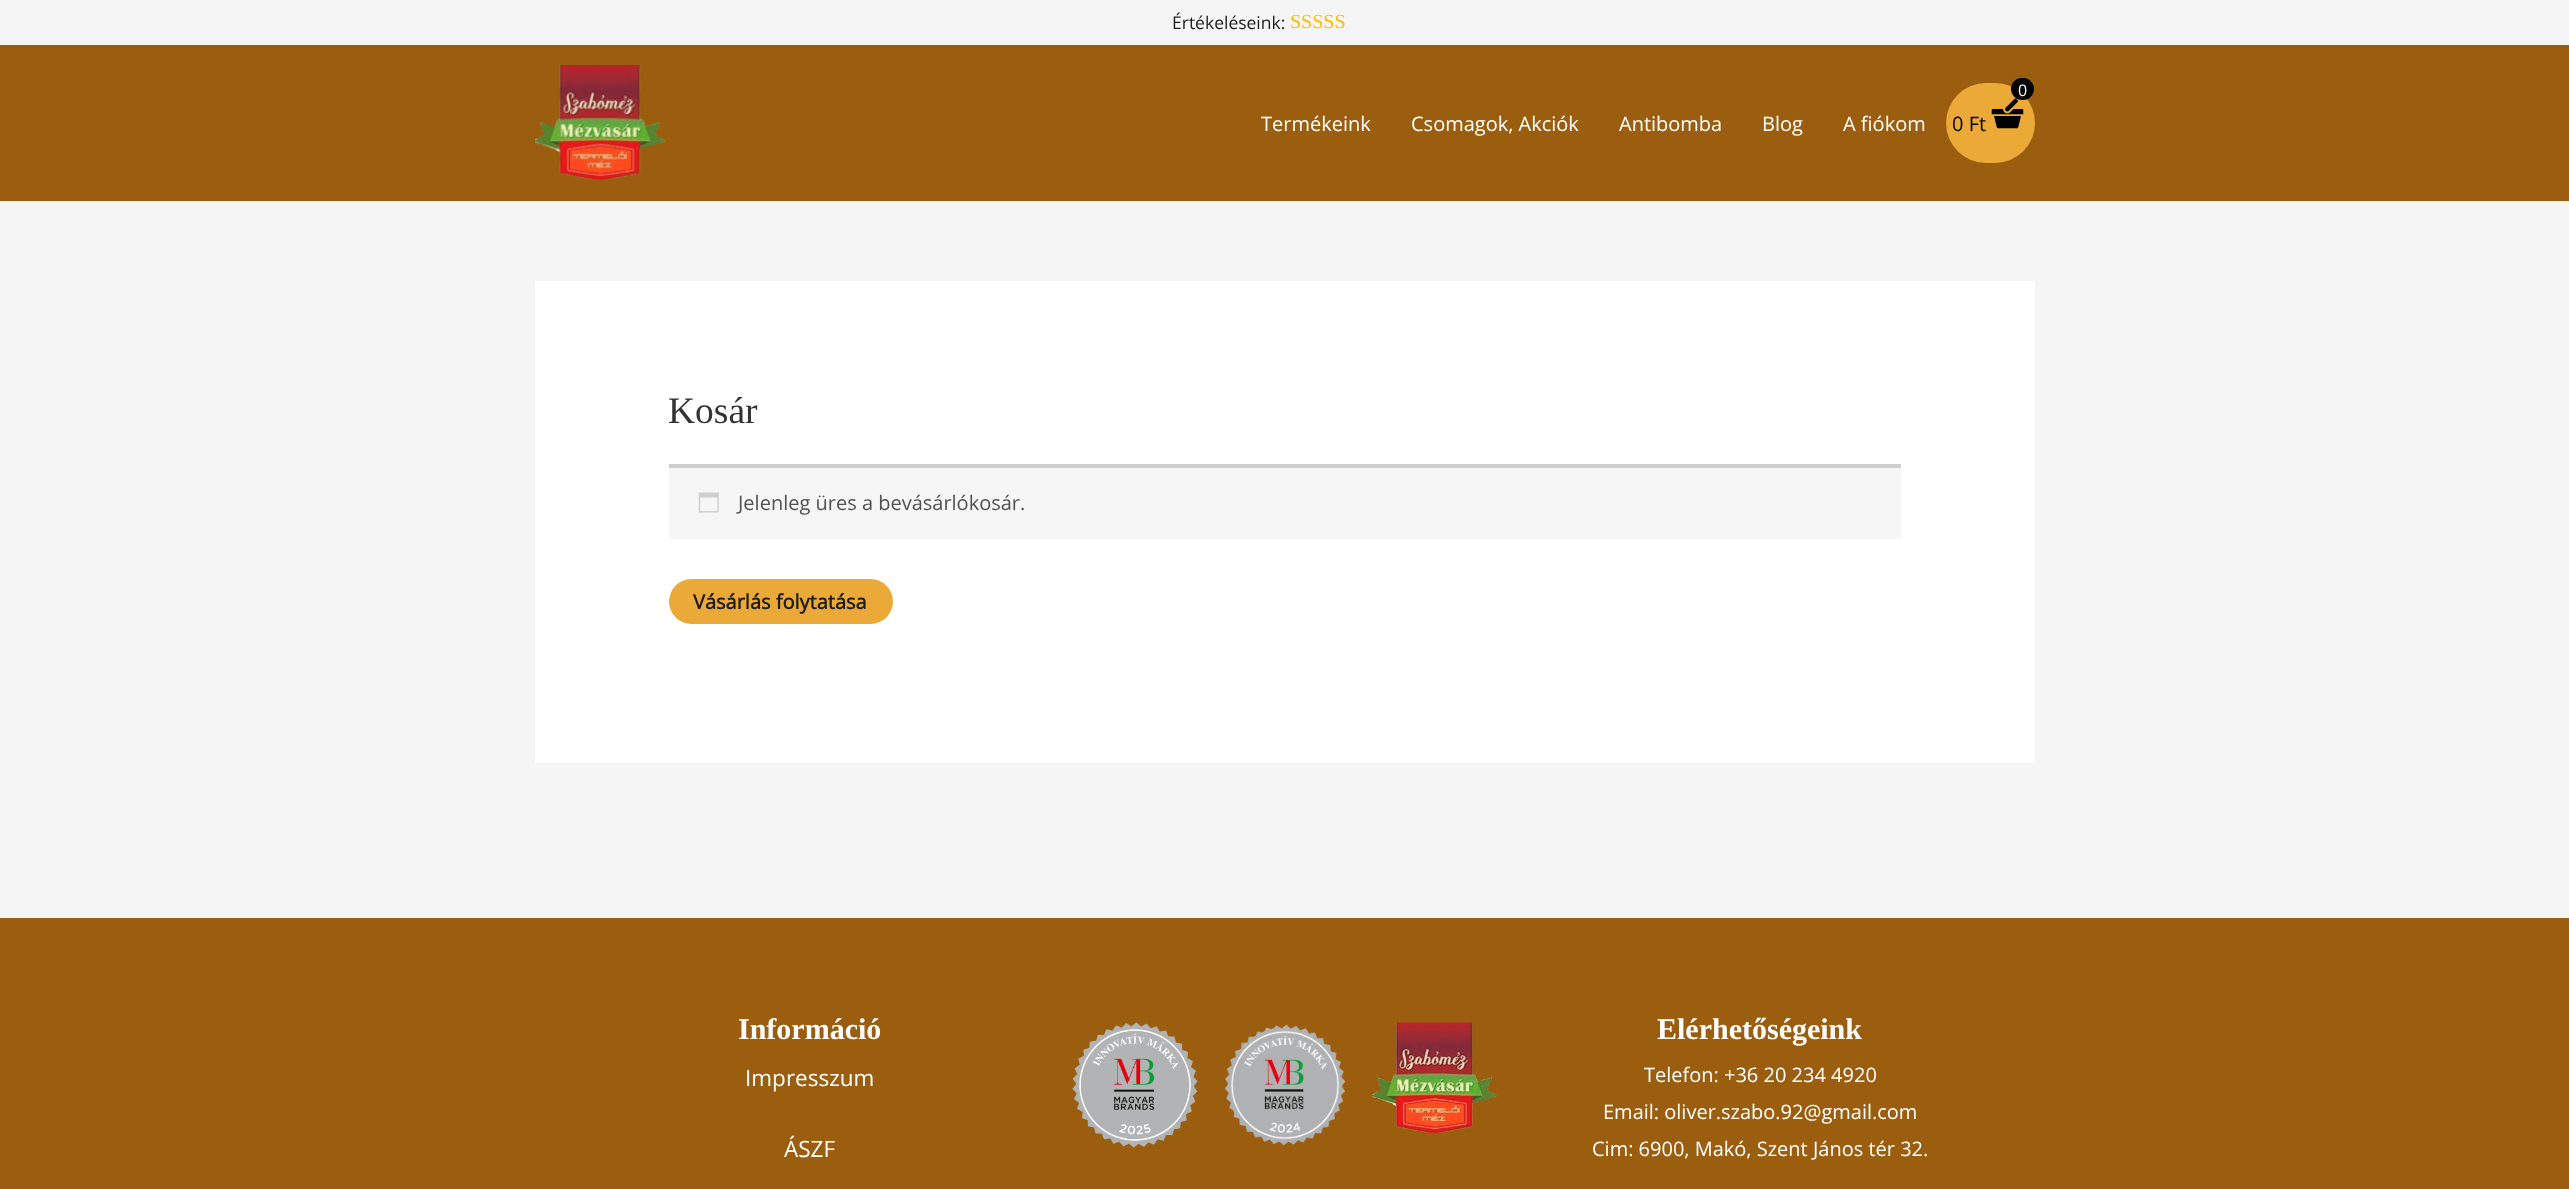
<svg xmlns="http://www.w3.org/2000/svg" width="2569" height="1189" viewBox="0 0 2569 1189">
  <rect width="100%" height="100%" fill="#f5f5f5"/>
  <path d="M0 45h2569v156H0z" fill="#9b5e0f"/>
  <image x="535" y="65" width="131" height="116" href="img/1.png"/>
  <rect x="1946" y="83" width="89" height="80" rx="40" fill="#eba937"/>
  <image x="1991" y="98" width="33" height="31" href="img/2.png"/>
  <rect x="2011" y="78" width="23" height="22" rx="11" fill="#000"/>
  <path d="M535 281h1500v482H535z" fill="#fff"/>
  <path d="M669 468h1232v71H669z" fill="#f7f6f7"/>
  <path d="M669 464h1232v4H669z" fill="#cecece"/>
  <image x="698" y="492" width="21" height="21" href="img/3.png"/>
  <rect x="669" y="579" width="224" height="45" rx="22.5" fill="#eba937"/>
  <path d="M0 918h2569v271H0z" fill="#9b5e0f"/>
  <image x="1072" y="1022" width="126" height="126" href="img/4.png"/>
  <image x="1224" y="1024" width="122" height="122" href="img/5.png"/>
  <image x="1372" y="1022" width="125" height="111" href="img/6.png"/>
  <text x="1172" y="29" font-family="Open Sans" font-size="17.5" fill="#1d1d1d">Értékeléseink:</text>
  <text x="1290" y="28" font-family="Liberation Serif" font-size="20" fill="#ffbc00">SSSSS</text>
  <g font-family="Open Sans" font-size="20" fill="#fff">
    <text x="1261" y="131">Termékeink</text>
    <text x="1411" y="131">Csomagok, Akciók</text>
    <text x="1619" y="131">Antibomba</text>
    <text x="1762" y="131">Blog</text>
    <text x="1843" y="131">A fiókom</text>
  </g>
  <text x="2018" y="96" font-family="Open Sans" font-size="16" fill="#fff">0</text>
  <text x="1952" y="131" font-family="Open Sans" font-size="20" fill="#000">0 Ft</text>
  <text x="668" y="423" font-family="Liberation Serif" font-size="37.5" fill="#333">Kosár</text>
  <text x="738" y="510" font-family="Open Sans" font-size="20" fill="#515151">Jelenleg üres a bevásárlókosár.</text>
  <text x="693" y="609" font-family="Open Sans" font-size="20" font-weight="bold" fill="#1d1d1d">Vásárlás folytatása</text>
  <text x="738" y="1039" font-family="Liberation Serif" font-size="30" font-weight="bold" fill="#fff">Információ</text>
  <g font-family="Open Sans" font-size="22.5" fill="#fff">
    <text x="745" y="1086">Impresszum</text>
    <text x="784" y="1157">ÁSZF</text>
  </g>
  <text x="1657" y="1039" font-family="Liberation Serif" font-size="30" font-weight="bold" fill="#fff">Elérhetőségeink</text>
  <g font-family="Open Sans" font-size="20" fill="#fff">
    <text x="1644" y="1082">Telefon: +36 20 234 4920</text>
    <text x="1603" y="1119">Email: oliver.szabo.92@gmail.com</text>
    <text x="1592" y="1156">Cim: 6900, Makó, Szent János tér 32.</text>
  </g>
</svg>
